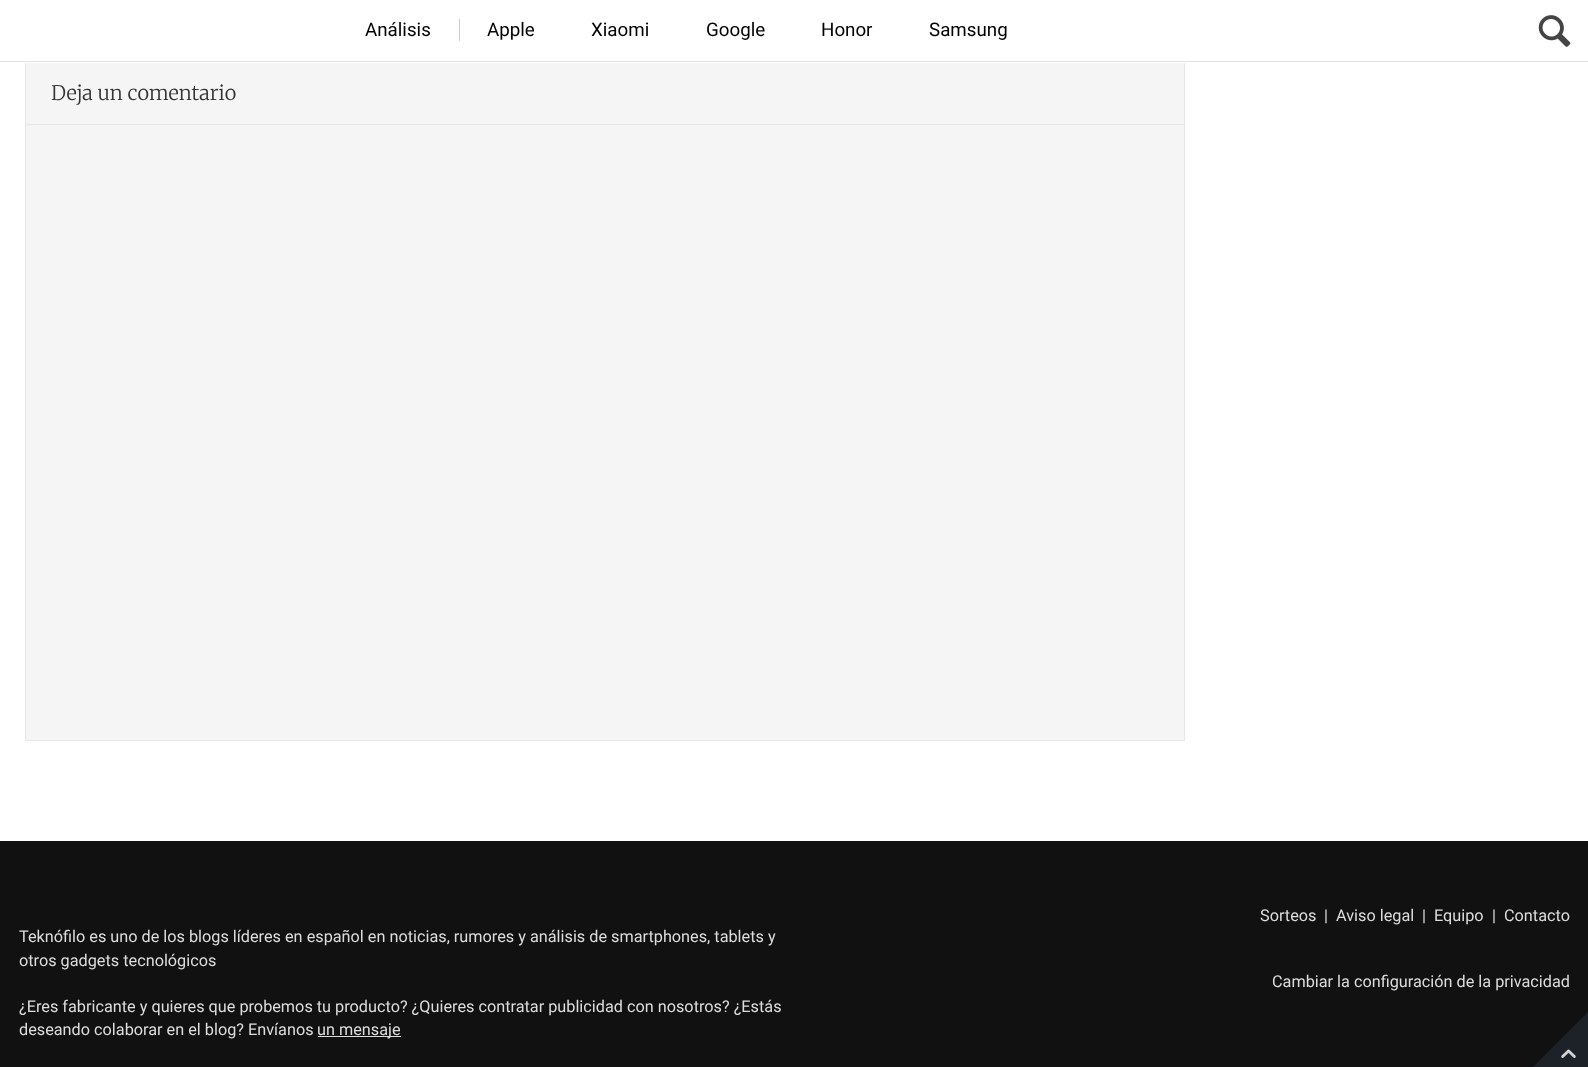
<svg xmlns="http://www.w3.org/2000/svg" width="1588" height="1067" viewBox="0 0 1588 1067">
  <rect width="100%" height="100%" fill="#fff"/>
  <path d="M26 63h1158v677H26z" fill="#f5f5f5"/>
  <path d="M25.5 60.5h1159v680H25.5z" fill="none" stroke="#e7e7e7"/>
  <path d="M25 60h1160v3H25z" fill="#fff"/>
  <path d="M0 61h1588v1H0z" fill="#e2e2e2"/>
  <path d="M459 19h1v22H459z" fill="#ccc"/>
  <image x="1538" y="15" width="33" height="32" href="img/1.png"/>
  <path d="M26 124h1158v1H26z" fill="#e7e7e7"/>
  <path d="M0 841h1588v226H0z" fill="#111"/>
  <path d="M318 1036h83v1H318z" fill="#ddd"/>
  <path d="M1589 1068H1532L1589 1011Z" fill="#1c2228"/>
  <image x="1561" y="1049" width="15" height="9" href="img/2.png"/>
  <g font-family="Roboto" font-size="18.75" fill="#000">
    <text x="365" y="36">Análisis</text>
    <text x="487" y="36">Apple</text>
    <text x="591" y="36">Xiaomi</text>
    <text x="706" y="36">Google</text>
    <text x="821" y="36">Honor</text>
    <text x="929" y="36">Samsung</text>
  </g>
  <text x="51" y="100" font-family="Merriweather" font-size="20" font-weight="300" fill="#333">Deja un comentario</text>
  <g font-family="Roboto" font-size="16.25" fill="#ddd">
    <text x="19" y="942">Teknófilo es uno de los blogs líderes en español en noticias, rumores y análisis de smartphones, tablets y</text>
    <text x="19" y="966">otros gadgets tecnológicos</text>
    <text x="19" y="1012">¿Eres fabricante y quieres que probemos tu producto? ¿Quieres contratar publicidad con nosotros? ¿Estás</text>
    <text x="19" y="1035">deseando colaborar en el blog? Envíanos</text>
    <text x="317" y="1035">un mensaje</text>
    <text x="1260" y="921">Sorteos</text>
    <text x="1324" y="921">|</text>
    <text x="1336" y="921">Aviso legal</text>
    <text x="1422" y="921">|</text>
    <text x="1434" y="921">Equipo</text>
    <text x="1492" y="921">|</text>
    <text x="1504" y="921">Contacto</text>
    <text x="1272" y="987">Cambiar la configuración de la privacidad</text>
  </g>
</svg>
